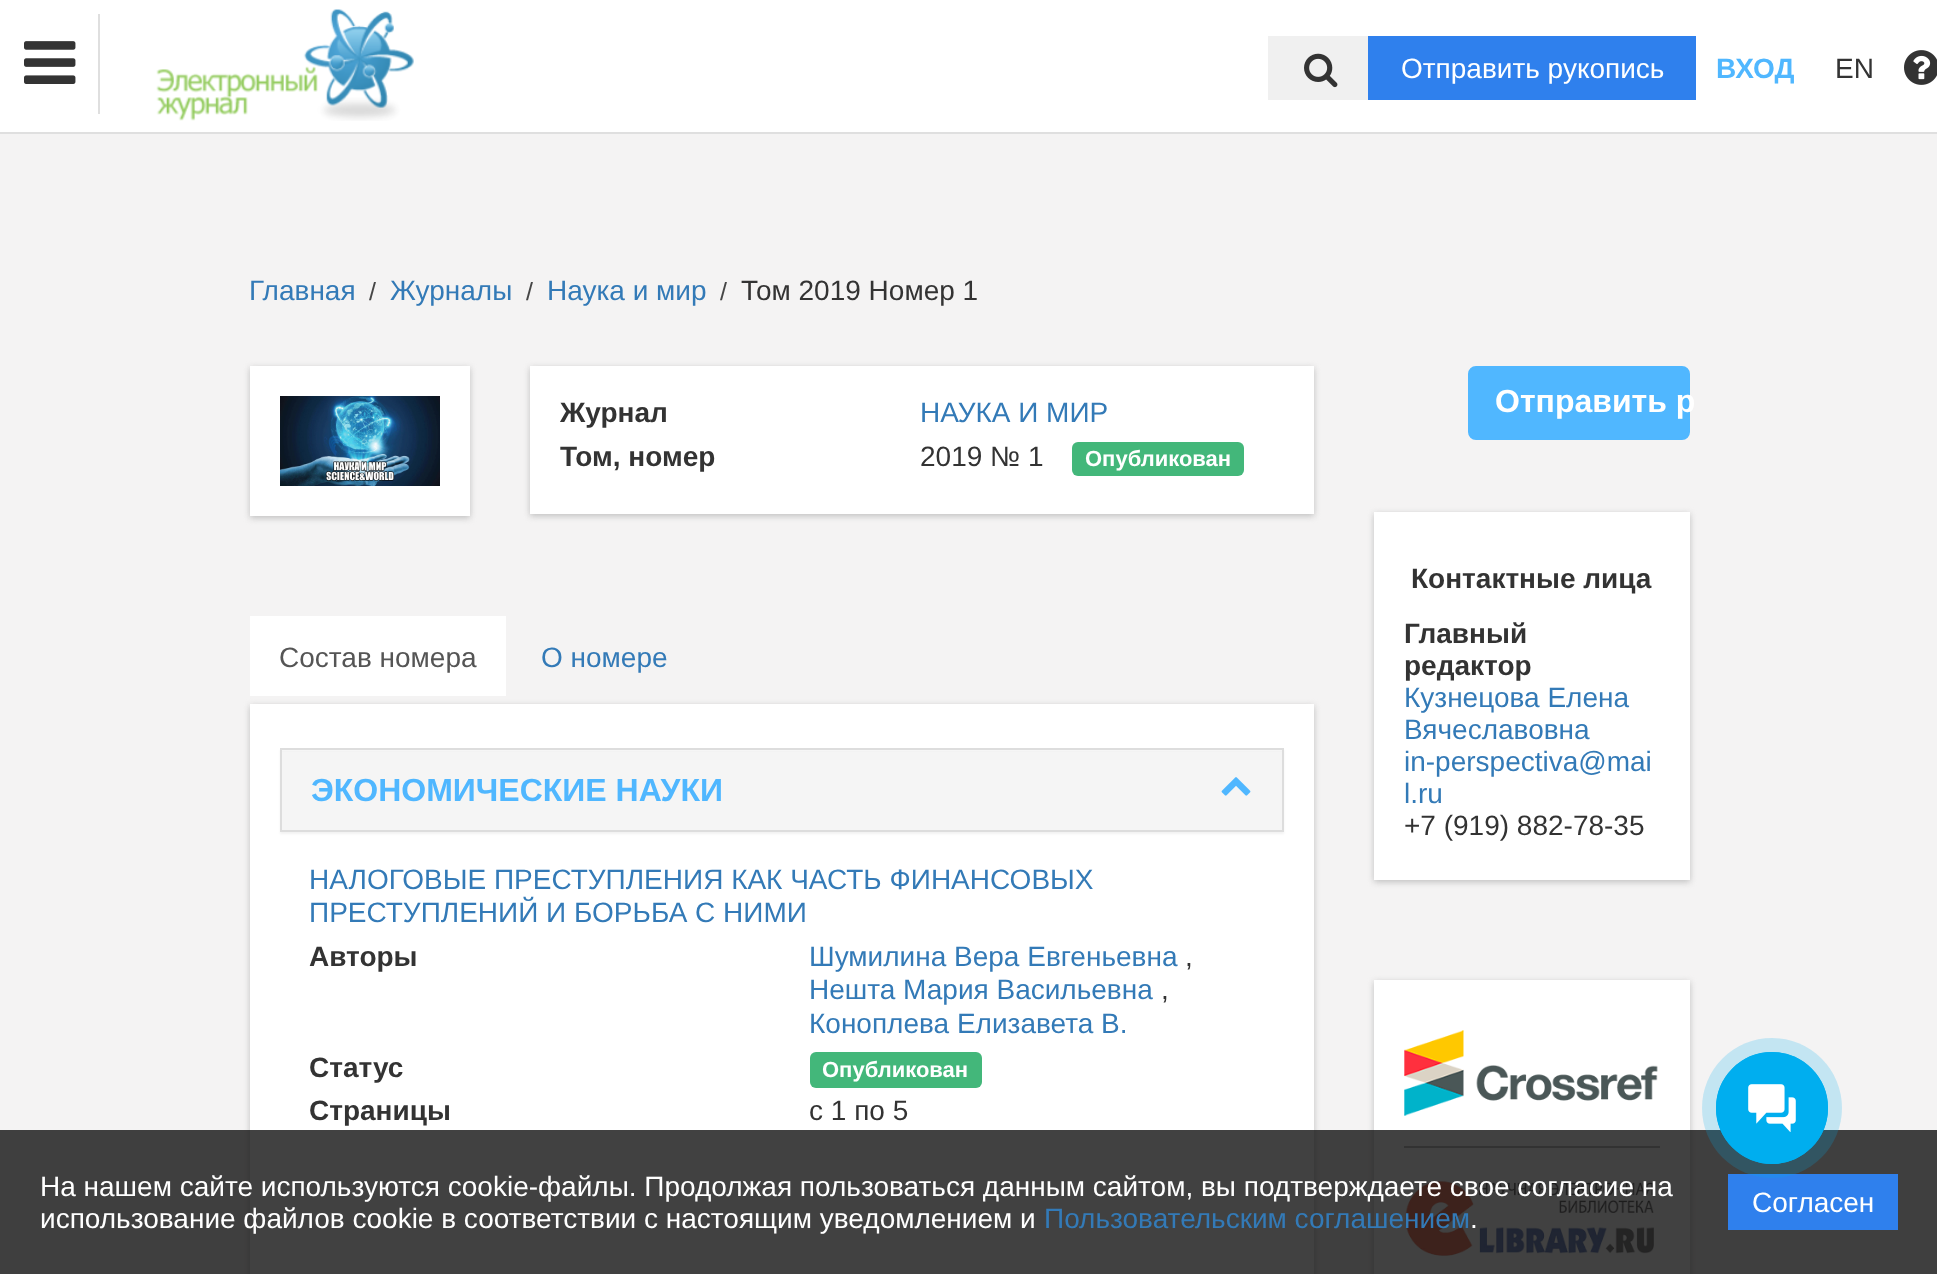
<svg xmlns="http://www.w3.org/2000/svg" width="1937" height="1274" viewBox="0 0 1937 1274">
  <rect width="100%" height="100%" fill="#f4f3f3"/>
  <path d="M0 0h1937v132H0z" fill="#fff"/>
  <path d="M0 132h1937v2H0z" fill="#dfdfdf"/>
  <path d="M98 14h2v100H98z" fill="#dfdfdf"/>
  <image x="24" y="41" width="52" height="43" href="img/1.png"/>
  <image x="156" y="9" width="258" height="112" href="img/2.png"/>
  <path d="M1268 36h100v64H1268z" fill="#f0f0f0"/>
  <image x="1304" y="53" width="34" height="35" href="img/3.png"/>
  <path d="M1368 36h328v64H1368z" fill="#2f80ed"/>
  <image x="1904" y="50" width="33" height="35" href="img/4.png"/>
  <path d="M250 368h220v150H250z" fill="#bfbfbf" filter="blur(3px)"/>
  <path d="M250 366h220v150H250z" fill="#fff"/>
  <image x="280" y="396" width="160" height="90" href="img/5.png"/>
  <path d="M530 368h784v148H530z" fill="#bfbfbf" filter="blur(3px)"/>
  <path d="M530 366h784v148H530z" fill="#fff"/>
  <rect x="1072" y="442" width="172" height="34" rx="6" fill="#43b77a"/>
  <path d="M250 616h256v80H250z" fill="#fff"/>
  <path d="M250 706h1064v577H250z" fill="#bfbfbf" filter="blur(3px)"/>
  <path d="M250 704h1064v570H250z" fill="#fff"/>
  <path d="M280 750h1004v84H280z" fill="#0000000d" filter="blur(1px)"/>
  <path d="M281 749h1002v82H281z" fill="none" stroke="#ddd" stroke-width="2"/>
  <path d="M282 752h1000v78H282z" fill="#f5f5f5"/>
  <image x="1221" y="777" width="30" height="19" href="img/6.png"/>
  <rect x="810" y="1052" width="172" height="36" rx="6" fill="#43b77a"/>
  <rect x="1469" y="367" width="220" height="72" rx="7" fill="#50b7ff" stroke="#50b7ff" stroke-width="2"/>
  <path d="M1374 514h316v368H1374z" fill="#bfbfbf" filter="blur(3px)"/>
  <path d="M1374 512h316v368H1374z" fill="#fff"/>
  <path d="M1374 982h316v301H1374z" fill="#bfbfbf" filter="blur(3px)"/>
  <path d="M1374 980h316v294H1374z" fill="#fff"/>
  <path d="M1404 1146h256v2H1404z" fill="#b3b3b3"/>
  <image x="1404" y="1030" width="254" height="86" href="img/7.png"/>
  <image x="1405" y="1181" width="249" height="75" href="img/8.png"/>
  <path d="M0 1130h1937v144H0z" fill="#121212cc"/>
  <path d="M1728 1174h170v56H1728z" fill="#2f80ed"/>
  <circle cx="1772" cy="1108" r="70" fill="#00aeef33"/>
  <circle cx="1772" cy="1108" r="55" fill="none" stroke="#00aeef" stroke-width="2"/>
  <circle cx="1772" cy="1108" r="56" fill="#00aeef"/>
  <image x="1748" y="1084" width="48" height="48" href="img/9.png"/>
  <text x="1401" y="78" font-family="Liberation Sans" font-size="28" fill="#fff">Отправить рукопись</text>
  <text x="1716" y="78" font-family="Liberation Sans" font-size="28" font-weight="bold" fill="#50b7ff">ВХОД</text>
  <text x="1835" y="78" font-family="Liberation Sans" font-size="28" fill="#333">EN</text>
  <text x="249" y="300" font-family="Liberation Sans" font-size="28" fill="#337ab7">Главная</text>
  <text x="369" y="300" font-family="Liberation Sans" font-size="25" fill="#464646">/</text>
  <text x="390" y="300" font-family="Liberation Sans" font-size="28" fill="#337ab7">Журналы</text>
  <text x="526" y="300" font-family="Liberation Sans" font-size="25" fill="#464646">/</text>
  <text x="547" y="300" font-family="Liberation Sans" font-size="28" fill="#337ab7">Наука и мир</text>
  <text x="720" y="300" font-family="Liberation Sans" font-size="25" fill="#464646">/</text>
  <text x="741" y="300" font-family="Liberation Sans" font-size="28" fill="#333">Том 2019 Номер 1</text>
  <text x="560" y="422" font-family="Liberation Sans" font-size="28" font-weight="bold" fill="#333">Журнал</text>
  <text x="920" y="422" font-family="Liberation Sans" font-size="28" fill="#337ab7">НАУКА И МИР</text>
  <text x="560" y="466" font-family="Liberation Sans" font-size="28" font-weight="bold" fill="#333">Том, номер</text>
  <text x="920" y="466" font-family="Liberation Sans" font-size="28" fill="#333">2019 № 1</text>
  <text x="1085" y="466" font-family="Liberation Sans" font-size="22" font-weight="bold" fill="#fff">Опубликован</text>
  <text x="279" y="667" font-family="Liberation Sans" font-size="28" fill="#555">Состав номера</text>
  <text x="541" y="667" font-family="Liberation Sans" font-size="28" fill="#337ab7">О номере</text>
  <text x="311" y="801" font-family="Liberation Sans" font-size="32" font-weight="bold" fill="#50b7ff">ЭКОНОМИЧЕСКИЕ НАУКИ</text>
  <g font-family="Liberation Sans" font-size="28" fill="#337ab7">
    <text x="309" y="889">НАЛОГОВЫЕ ПРЕСТУПЛЕНИЯ КАК ЧАСТЬ ФИНАНСОВЫХ</text>
    <text x="309" y="922">ПРЕСТУПЛЕНИЙ И БОРЬБА С НИМИ</text>
  </g>
  <text x="309" y="966" font-family="Liberation Sans" font-size="28" font-weight="bold" fill="#333">Авторы</text>
  <text x="809" y="966" font-family="Liberation Sans" font-size="28" fill="#337ab7">Шумилина Вера Евгеньевна</text>
  <text x="1185" y="966" font-family="Liberation Sans" font-size="28" fill="#333">,</text>
  <text x="809" y="999" font-family="Liberation Sans" font-size="28" fill="#337ab7">Нешта Мария Васильевна</text>
  <text x="1161" y="999" font-family="Liberation Sans" font-size="28" fill="#333">,</text>
  <text x="809" y="1033" font-family="Liberation Sans" font-size="28" fill="#337ab7">Коноплева Елизавета В.</text>
  <text x="309" y="1077" font-family="Liberation Sans" font-size="28" font-weight="bold" fill="#333">Статус</text>
  <text x="822" y="1077" font-family="Liberation Sans" font-size="22" font-weight="bold" fill="#fff">Опубликован</text>
  <text x="309" y="1120" font-family="Liberation Sans" font-size="28" font-weight="bold" fill="#333">Страницы</text>
  <text x="809" y="1120" font-family="Liberation Sans" font-size="28" fill="#333">с 1 по 5</text>
  <text x="1495" y="412" font-family="Liberation Sans" font-size="32" font-weight="bold" fill="#fff">Отправить р</text>
  <g font-family="Liberation Sans" font-size="28" font-weight="bold" fill="#333">
    <text x="1411" y="588">Контактные лица</text>
    <text x="1404" y="643">Главный</text>
    <text x="1404" y="675">редактор</text>
  </g>
  <g font-family="Liberation Sans" font-size="28" fill="#337ab7">
    <text x="1404" y="707">Кузнецова Елена</text>
    <text x="1404" y="739">Вячеславовна</text>
    <text x="1404" y="771">in-perspectiva@mai</text>
    <text x="1404" y="803">l.ru</text>
  </g>
  <text x="1404" y="835" font-family="Liberation Sans" font-size="28" fill="#333">+7 (919) 882-78-35</text>
  <g font-family="Liberation Sans" font-size="28" fill="#fff">
    <text x="40" y="1196">На нашем сайте используются cookie-файлы. Продолжая пользоваться данным сайтом, вы подтверждаете свое согласие на</text>
    <text x="40" y="1228">использование файлов cookie в соответствии с настоящим уведомлением и</text>
  </g>
  <text x="1044" y="1228" font-family="Liberation Sans" font-size="28" fill="#337ab7">Пользовательским соглашением</text>
  <g font-family="Liberation Sans" font-size="28" fill="#fff">
    <text x="1470" y="1228">.</text>
    <text x="1752" y="1212">Согласен</text>
  </g>
</svg>
